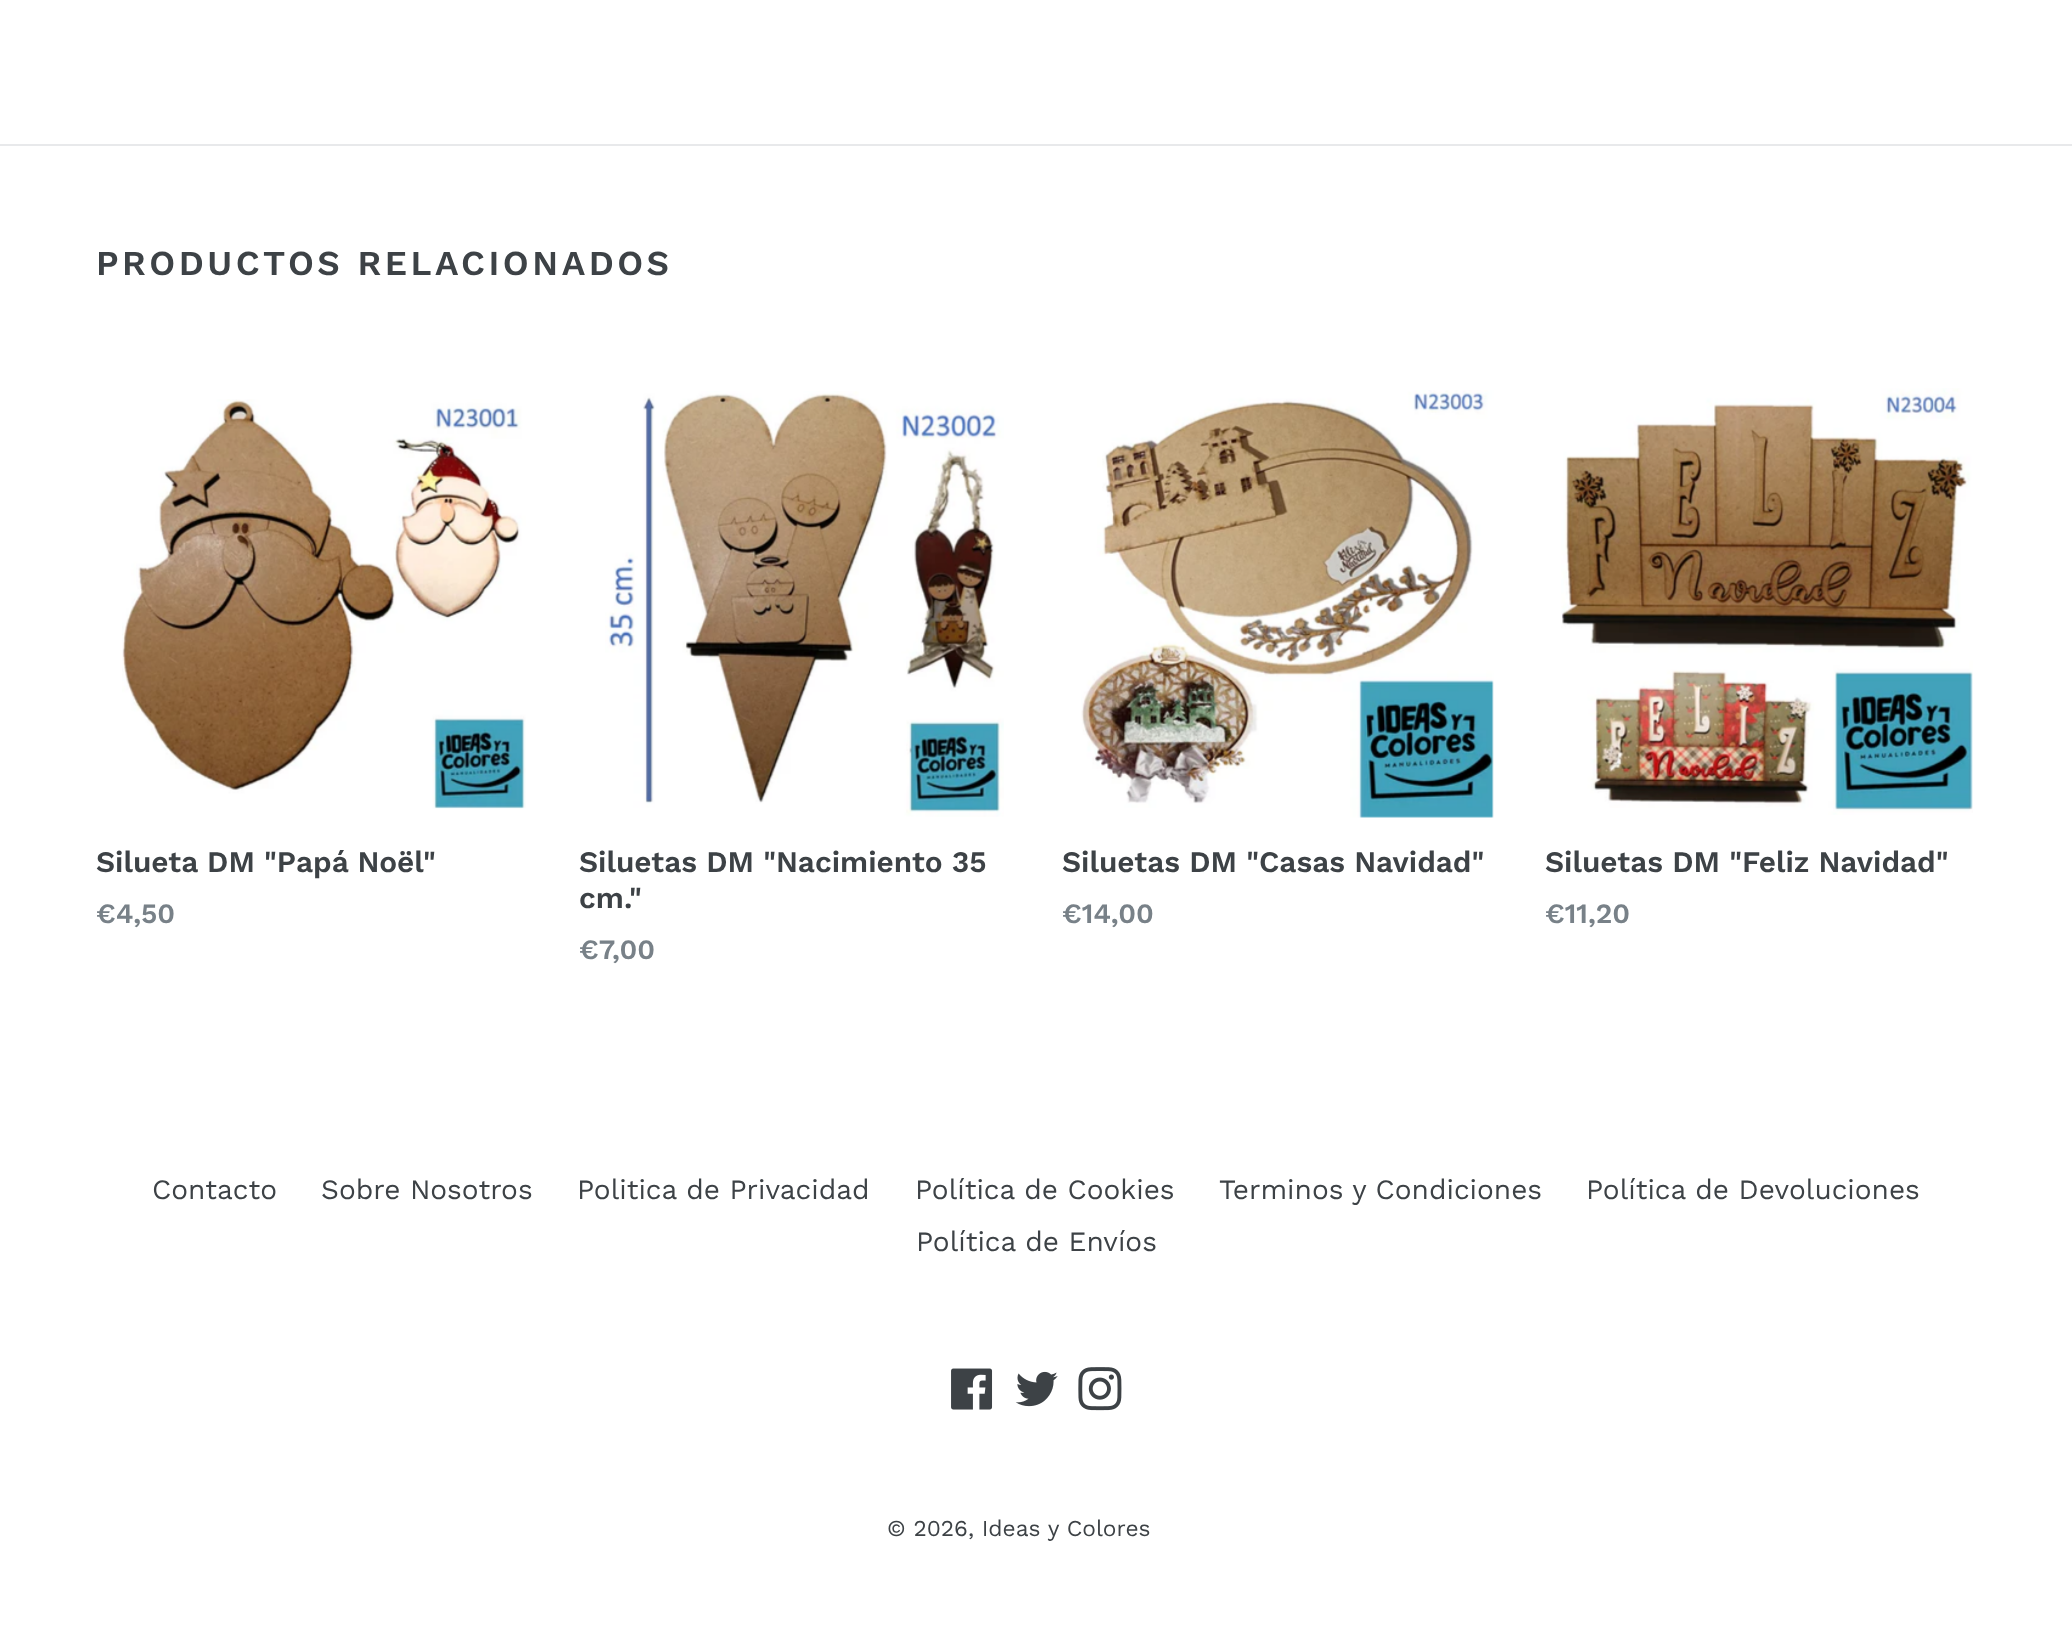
<svg xmlns="http://www.w3.org/2000/svg" width="2072" height="1645" viewBox="0 0 2072 1645">
  <rect width="100%" height="100%" fill="#fff"/>
  <path d="M0 144h2072v2H0z" fill="#e8e9eb"/>
  <image x="122" y="399" width="404" height="410" href="img/1.png"/>
  <image x="605" y="391" width="399" height="426" href="img/2.png"/>
  <image x="1081" y="390" width="413" height="428" href="img/3.png"/>
  <image x="1561" y="388" width="412" height="427" href="img/4.png"/>
  <image x="951" y="1368" width="42" height="42" href="img/5.png"/>
  <image x="1015" y="1371" width="43" height="36" href="img/6.png"/>
  <image x="1078" y="1367" width="44" height="44" href="img/7.png"/>
  <text x="96" y="275" font-family="Work Sans" font-size="35" font-weight="600" letter-spacing="3.5" fill="#3d4246">PRODUCTOS RELACIONADOS</text>
  <text x="96" y="872" font-family="Work Sans" font-size="29.75" font-weight="600" fill="#3d4246">Silueta DM "Papá Noël"</text>
  <text x="96" y="923" font-family="Work Sans" font-size="28" font-weight="600" fill="#788188">€4,50</text>
  <g font-family="Work Sans" font-size="29.75" font-weight="600" fill="#3d4246">
    <text x="579" y="872">Siluetas DM "Nacimiento 35</text>
    <text x="579" y="908">cm."</text>
  </g>
  <text x="579" y="959" font-family="Work Sans" font-size="28" font-weight="600" fill="#788188">€7,00</text>
  <text x="1062" y="872" font-family="Work Sans" font-size="29.75" font-weight="600" fill="#3d4246">Siluetas DM "Casas Navidad"</text>
  <text x="1062" y="923" font-family="Work Sans" font-size="28" font-weight="600" fill="#788188">€14,00</text>
  <text x="1545" y="872" font-family="Work Sans" font-size="29.75" font-weight="600" fill="#3d4246">Siluetas DM "Feliz Navidad"</text>
  <text x="1545" y="923" font-family="Work Sans" font-size="28" font-weight="600" fill="#788188">€11,20</text>
  <g font-family="Work Sans" font-size="28" fill="#3d4246">
    <text x="152" y="1199">Contacto</text>
    <text x="321" y="1199">Sobre Nosotros</text>
    <text x="577" y="1199">Politica de Privacidad</text>
    <text x="915" y="1199">Política de Cookies</text>
    <text x="1219" y="1199">Terminos y Condiciones</text>
    <text x="1586" y="1199">Política de Devoluciones</text>
    <text x="916" y="1251">Política de Envíos</text>
  </g>
  <text x="887" y="1536" font-family="Work Sans" font-size="22.75" fill="#3d4246">© 2026, Ideas y Colores</text>
</svg>
